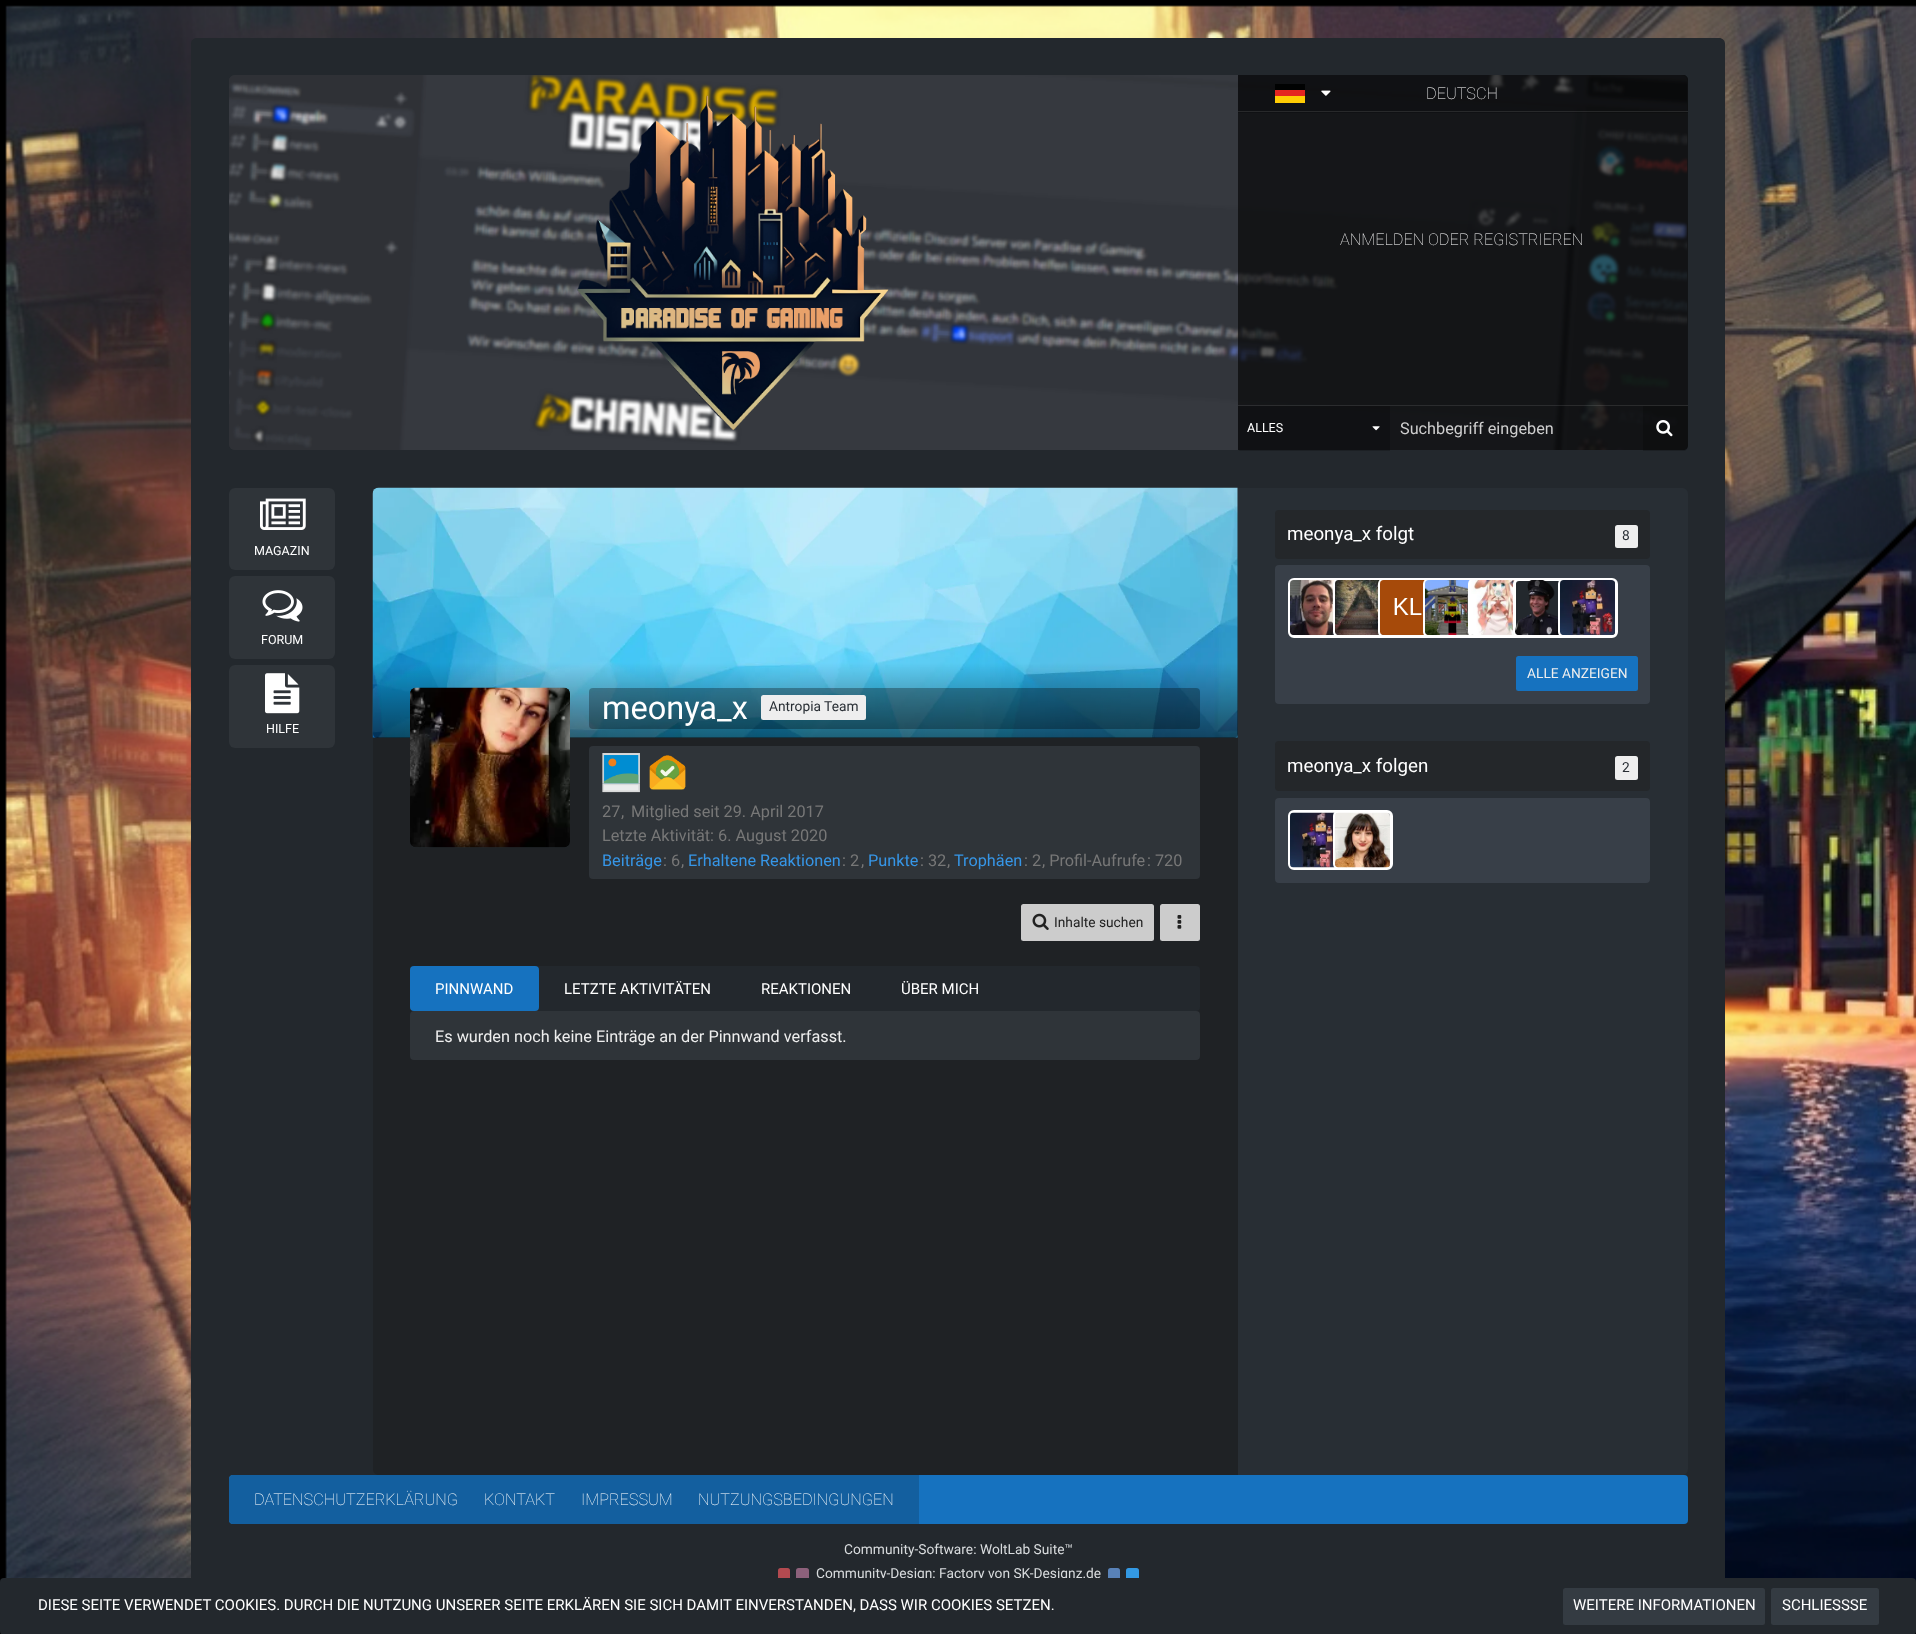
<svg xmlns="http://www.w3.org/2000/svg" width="1916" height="1634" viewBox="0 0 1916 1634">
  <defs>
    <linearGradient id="g1" gradientUnits="userSpaceOnUse" x1="805" y1="487" x2="805" y2="738"><stop offset="0.7" stop-color="#000" stop-opacity="0"/><stop offset="1" stop-color="#000" stop-opacity="0.5"/></linearGradient>
  </defs>
  <rect width="100%" height="100%" fill="#fff"/>
  <image x="0" y="0" width="1916" height="1634" href="img/1.png"/>
  <path d="M197 38H1719C1722.5 38 1725 40.5 1725 44V481H191V44C191 40.5 193.5 38 197 38Z" fill="#23282d"/>
  <rect x="229" y="75" width="1459" height="375" rx="6" fill="#2f3439"/>
  <image x="229" y="75" width="1459" height="375" href="img/3.png"/>
  <path d="M1238 75H1683C1686 75 1688 77 1688 80V445C1688 448 1686 450 1683 450H1238Z" fill="#00000099"/>
  <path d="M1238 75H1683C1686 75 1688 77 1688 80V113H1238Z" fill="#00000033"/>
  <path d="M1238 111h450v1H1238z" fill="#ffffff1a"/>
  <path d="M1275 84h30v6H1275z" fill="#010202"/>
  <path d="M1275 96h30v7H1275z" fill="#ffcc04"/>
  <path d="M1275 90h30v6H1275z" fill="#e52420"/>
  <image x="1321" y="90" width="10" height="6" href="img/2.png"/>
  <path d="M1238 405h450v1H1238z" fill="#ffffff1a"/>
  <image x="577" y="95" width="312" height="335" href="img/4.png"/>
  <path d="M1238 406H1390V451H1240.5C1239 451 1238 450 1238 448.5Z" fill="#00000033"/>
  <image x="1372" y="426" width="8" height="5" href="img/5.png"/>
  <path d="M1643 406H1688V446C1688 449 1686 451 1683 451H1643Z" fill="#00000033"/>
  <image x="1656" y="420" width="17" height="17" href="img/6.png"/>
  <path d="M191 481h1534v994H191z" fill="#23282d"/>
  <rect x="229" y="488" width="106" height="82" rx="6" fill="#2f3439"/>
  <image x="260" y="498" width="46" height="32" href="img/7.png"/>
  <rect x="229" y="576" width="106" height="83" rx="6" fill="#2f3439"/>
  <image x="262" y="590" width="41" height="32" href="img/8.png"/>
  <rect x="229" y="665" width="106" height="83" rx="6" fill="#2f3439"/>
  <image x="265" y="673" width="35" height="41" href="img/9.png"/>
  <path d="M1238 488H1682C1685.5 488 1688 490.5 1688 494V1469C1688 1472.5 1685.5 1475 1682 1475H1238Z" fill="#282e34"/>
  <rect x="1275" y="510" width="375" height="49" rx="4" fill="#24272a"/>
  <rect x="1615" y="525" width="23" height="23" rx="2.5" fill="#eee"/>
  <rect x="1275" y="565" width="375" height="139" rx="4" fill="#383f48"/>
  <rect x="1289.5" y="579.5" width="57" height="57" rx="4.5" fill="none" stroke="#fff" stroke-width="3"/>
  <image x="1290" y="580" width="49" height="55" href="img/10.png"/>
  <rect x="1334.5" y="579.5" width="57" height="57" rx="4.5" fill="none" stroke="#fff" stroke-width="3"/>
  <image x="1335" y="580" width="49" height="55" href="img/11.png"/>
  <rect x="1379.5" y="579.5" width="57" height="57" rx="4.5" fill="none" stroke="#fff" stroke-width="3"/>
  <image x="1380" y="580" width="49" height="55" href="img/12.png"/>
  <rect x="1424.5" y="579.5" width="57" height="57" rx="4.5" fill="none" stroke="#fff" stroke-width="3"/>
  <image x="1425" y="580" width="49" height="55" href="img/13.png"/>
  <rect x="1469.5" y="579.5" width="57" height="57" rx="4.5" fill="none" stroke="#fff" stroke-width="3"/>
  <image x="1471" y="580" width="44" height="55" href="img/14.png"/>
  <rect x="1514.5" y="579.5" width="57" height="57" rx="4.5" fill="#23282d" stroke="#fff" stroke-width="3"/>
  <image x="1515" y="580" width="44" height="55" href="img/15.png"/>
  <rect x="1559.5" y="579.5" width="57" height="57" rx="4.5" fill="#23282d" stroke="#fff" stroke-width="3"/>
  <image x="1560" y="580" width="55" height="55" href="img/16.png"/>
  <rect x="1516" y="656" width="122" height="35" rx="2.5" fill="#1672bf"/>
  <rect x="1275" y="741" width="375" height="50" rx="4" fill="#24272a"/>
  <rect x="1615" y="756" width="23" height="24" rx="2.5" fill="#eee"/>
  <rect x="1275" y="798" width="375" height="85" rx="4" fill="#383f48"/>
  <rect x="1289.5" y="811.5" width="57" height="57" rx="4.5" fill="none" stroke="#fff" stroke-width="3"/>
  <image x="1290" y="812" width="47" height="56" href="img/17.png"/>
  <rect x="1334.5" y="811.5" width="57" height="57" rx="4.5" fill="none" stroke="#fff" stroke-width="3"/>
  <image x="1335" y="812" width="55" height="56" href="img/18.png"/>
  <path d="M379 488H1238V1475H379C375.5 1475 373 1472.5 373 1469V494C373 490.5 375.5 488 379 488Z" fill="#1f2225"/>
  <path d="M379 488H1238V738H373V494C373 490.5 375.5 488 379 488Z" fill="#23282d"/>
  <image x="372" y="487" width="866" height="251" href="img/19.png"/>
  <path d="M379 488H1238V734C1238 736 1236 738 1234 738H377C375 738 373 736 373 734V494C373 490.5 375.5 488 379 488Z" fill="url(#g1)"/>
  <rect x="410" y="688" width="160" height="160" rx="6" fill="#23282d"/>
  <image x="410" y="687" width="160" height="161" href="img/20.png"/>
  <rect x="589" y="688" width="611" height="41" rx="4" fill="#0000004d"/>
  <rect x="761" y="695" width="105" height="25" rx="2.5" fill="#eee"/>
  <rect x="589" y="746" width="611" height="133" rx="4" fill="#2f3439"/>
  <image x="602" y="753" width="38" height="40" href="img/21.png"/>
  <image x="649" y="755" width="37" height="35" href="img/22.png"/>
  <rect x="1021" y="904" width="133" height="37" rx="2.5" fill="#ccc"/>
  <image x="1032" y="913" width="17" height="17" href="img/23.png"/>
  <rect x="1160" y="904" width="40" height="37" rx="2.5" fill="#ccc"/>
  <image x="1177" y="915" width="5" height="14" href="img/24.png"/>
  <rect x="410" y="966" width="790" height="45" rx="4" fill="#23282d"/>
  <rect x="410" y="966" width="129" height="45" rx="4" fill="#1672bf"/>
  <rect x="410" y="1011" width="790" height="49" rx="4" fill="#2f3439"/>
  <path d="M191 1475h1534v103H191z" fill="#23282d"/>
  <rect x="229" y="1475" width="1459" height="49" rx="4" fill="#1672bf"/>
  <path d="M233 1475H919V1524H233C231 1524 229 1522 229 1520V1479C229 1477 231 1475 233 1475Z" fill="#135f9f"/>
  <rect x="778" y="1568" width="12" height="12" rx="2.5" fill="#b34a50"/>
  <rect x="796" y="1568" width="13" height="12" rx="2.5" fill="#8d617b"/>
  <rect x="1108" y="1568" width="12" height="12" rx="2.5" fill="#5982b8"/>
  <rect x="1126" y="1568" width="13" height="12" rx="2.5" fill="#3399e3"/>
  <g font-family="Roboto" font-size="16.25" font-weight="100" fill="#fff">
    <text x="1426" y="99">DEUTSCH</text>
    <text x="1340" y="245">ANMELDEN ODER REGISTRIEREN</text>
  </g>
  <text x="1247" y="432" font-family="Roboto" font-size="12.5" fill="#fff">ALLES</text>
  <text x="1400" y="434" font-family="Roboto" font-size="16.25" fill="#cfcfcf">Suchbegriff eingeben</text>
  <g font-family="Roboto" font-size="12.5" fill="#fff">
    <text x="254" y="555">MAGAZIN</text>
    <text x="261" y="644">FORUM</text>
    <text x="266" y="733">HILFE</text>
  </g>
  <text x="1287" y="540" font-family="Roboto" font-size="18.75" fill="#fff">meonya_x folgt</text>
  <text x="1622" y="540" font-family="Roboto" font-size="13.75" fill="#282e34">8</text>
  <text x="1527" y="678" font-family="Roboto" font-size="13.75" fill="#eee">ALLE ANZEIGEN</text>
  <text x="1287" y="772" font-family="Roboto" font-size="18.75" fill="#fff">meonya_x folgen</text>
  <text x="1622" y="772" font-family="Roboto" font-size="13.75" fill="#282e34">2</text>
  <text x="602" y="719" font-family="Roboto" font-size="32.5" fill="#fff">meonya_x</text>
  <text x="769" y="711" font-family="Roboto" font-size="13.75" fill="#282e34">Antropia Team</text>
  <g font-family="Roboto" font-size="16.25" fill="#777">
    <text x="602" y="817">27</text>
    <text x="621" y="817">,</text>
    <text x="631" y="817">Mitglied seit 29. April 2017</text>
    <text x="602" y="841">Letzte Aktivität: 6. August 2020</text>
  </g>
  <text x="602" y="866" font-family="Roboto" font-size="16.25" fill="#3696e7">Beiträge</text>
  <g font-family="Roboto" font-size="16.25" fill="#777">
    <text x="663" y="866">: 6</text>
    <text x="681" y="866">,</text>
  </g>
  <text x="688" y="866" font-family="Roboto" font-size="16.25" fill="#3696e7">Erhaltene Reaktionen</text>
  <g font-family="Roboto" font-size="16.25" fill="#777">
    <text x="842" y="866">: 2</text>
    <text x="861" y="866">,</text>
  </g>
  <text x="868" y="866" font-family="Roboto" font-size="16.25" fill="#3696e7">Punkte</text>
  <g font-family="Roboto" font-size="16.25" fill="#777">
    <text x="920" y="866">: 32</text>
    <text x="947" y="866">,</text>
  </g>
  <text x="954" y="866" font-family="Roboto" font-size="16.25" fill="#3696e7">Trophäen</text>
  <g font-family="Roboto" font-size="16.25" fill="#777">
    <text x="1024" y="866">: 2</text>
    <text x="1042" y="866">, Profil-Aufrufe</text>
    <text x="1147" y="866">: 720</text>
  </g>
  <text x="1054" y="927" font-family="Roboto" font-size="13.75" fill="#212121">Inhalte suchen</text>
  <g font-family="Roboto" font-size="15" fill="#fff">
    <text x="435" y="994">PINNWAND</text>
    <text x="564" y="994">LETZTE AKTIVITÄTEN</text>
    <text x="761" y="994">REAKTIONEN</text>
    <text x="901" y="994">ÜBER MICH</text>
  </g>
  <text x="435" y="1042" font-family="Roboto" font-size="16.25" fill="#eee">Es wurden noch keine Einträge an der Pinnwand verfasst.</text>
  <g font-family="Roboto" font-size="16.25" font-weight="100" fill="#fff">
    <text x="254" y="1505">DATENSCHUTZERKLÄRUNG</text>
    <text x="484" y="1505">KONTAKT</text>
    <text x="581" y="1505">IMPRESSUM</text>
    <text x="698" y="1505">NUTZUNGSBEDINGUNGEN</text>
  </g>
  <g font-family="Roboto" font-size="13.75" fill="#d9dcde">
    <text x="844" y="1554">Community-Software: WoltLab Suite™</text>
    <text x="816" y="1578">Community-Design: Factory von SK-Designz.de</text>
  </g>
  <rect y="1578" width="1916" height="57" rx="4" fill="#23282d"/>
  <text x="38" y="1610" font-family="Roboto" font-size="15" fill="#fff">DIESE SEITE VERWENDET COOKIES. DURCH DIE NUTZUNG UNSERER SEITE ERKLÄREN SIE SICH DAMIT EINVERSTANDEN, DASS WIR COOKIES SETZEN.</text>
  <rect x="1563" y="1588" width="202" height="37" rx="2.5" fill="#343b42"/>
  <text x="1573" y="1610" font-family="Roboto" font-size="15" fill="#fff">WEITERE INFORMATIONEN</text>
  <rect x="1771" y="1588" width="108" height="37" rx="2.5" fill="#343b42"/>
  <text x="1782" y="1610" font-family="Roboto" font-size="15" fill="#fff">SCHLIESSSE</text>
</svg>
